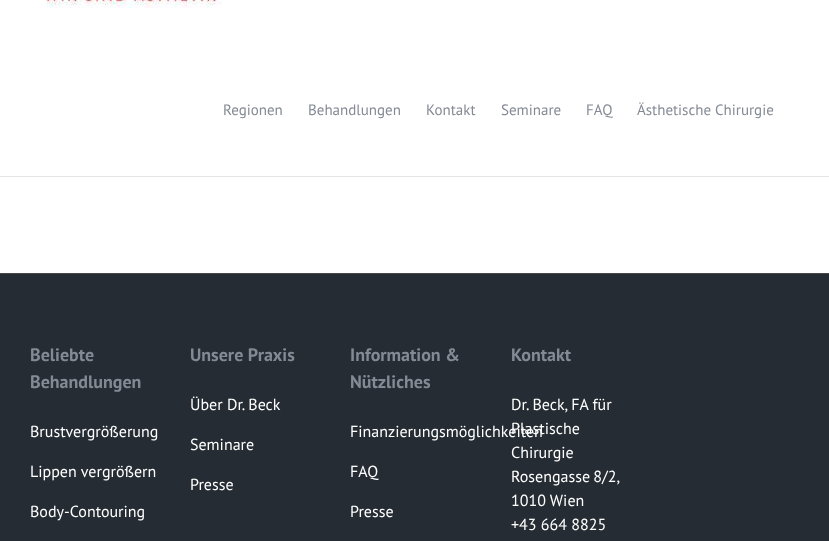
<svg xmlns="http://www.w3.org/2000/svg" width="829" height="541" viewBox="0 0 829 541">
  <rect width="100%" height="100%" fill="#fff"/>
  <path d="M0 176h829v1H0z" fill="#e5e5e5"/>
  <image x="45" y="0" width="177" height="8" href="img/1.png"/>
  <path d="M0 274h829v267H0z" fill="#252c33"/>
  <path d="M0 273h829v1H0z" fill="#474747"/>
  <g font-family="PT Sans" font-size="15" fill="#848a94">
    <text x="223" y="115">Regionen</text>
    <text x="308" y="115">Behandlungen</text>
    <text x="426" y="115">Kontakt</text>
    <text x="501" y="115">Seminare</text>
    <text x="586" y="115">FAQ</text>
    <text x="637" y="115">Ästhetische Chirurgie</text>
  </g>
  <g font-family="PT Sans" font-size="18" font-weight="bold" fill="#848a94">
    <text x="30" y="361">Beliebte</text>
    <text x="30" y="388">Behandlungen</text>
  </g>
  <g font-family="PT Sans" font-size="16" fill="#fff">
    <text x="30" y="437">Brustvergrößerung</text>
    <text x="30" y="477">Lippen vergrößern</text>
    <text x="30" y="517">Body-Contouring</text>
  </g>
  <text x="190" y="361" font-family="PT Sans" font-size="18" font-weight="bold" fill="#848a94">Unsere Praxis</text>
  <g font-family="PT Sans" font-size="16" fill="#fff">
    <text x="190" y="410">Über Dr. Beck</text>
    <text x="190" y="450">Seminare</text>
    <text x="190" y="490">Presse</text>
  </g>
  <g font-family="PT Sans" font-size="18" font-weight="bold" fill="#848a94">
    <text x="350" y="361">Information &amp;</text>
    <text x="350" y="388">Nützliches</text>
  </g>
  <g font-family="PT Sans" font-size="16" fill="#fff">
    <text x="350" y="437">Finanzierungsmöglichkeiten</text>
    <text x="350" y="477">FAQ</text>
    <text x="350" y="517">Presse</text>
  </g>
  <text x="511" y="361" font-family="PT Sans" font-size="18" font-weight="bold" fill="#848a94">Kontakt</text>
  <g font-family="PT Sans" font-size="16" fill="#fff">
    <text x="511" y="410">Dr. Beck, FA für</text>
    <text x="511" y="434">Plastische</text>
    <text x="511" y="458">Chirurgie</text>
    <text x="511" y="482" word-spacing="-1">Rosengasse 8/2,</text>
    <text x="511" y="506">1010 Wien</text>
    <text x="511" y="530">+43 664 8825</text>
  </g>
</svg>
